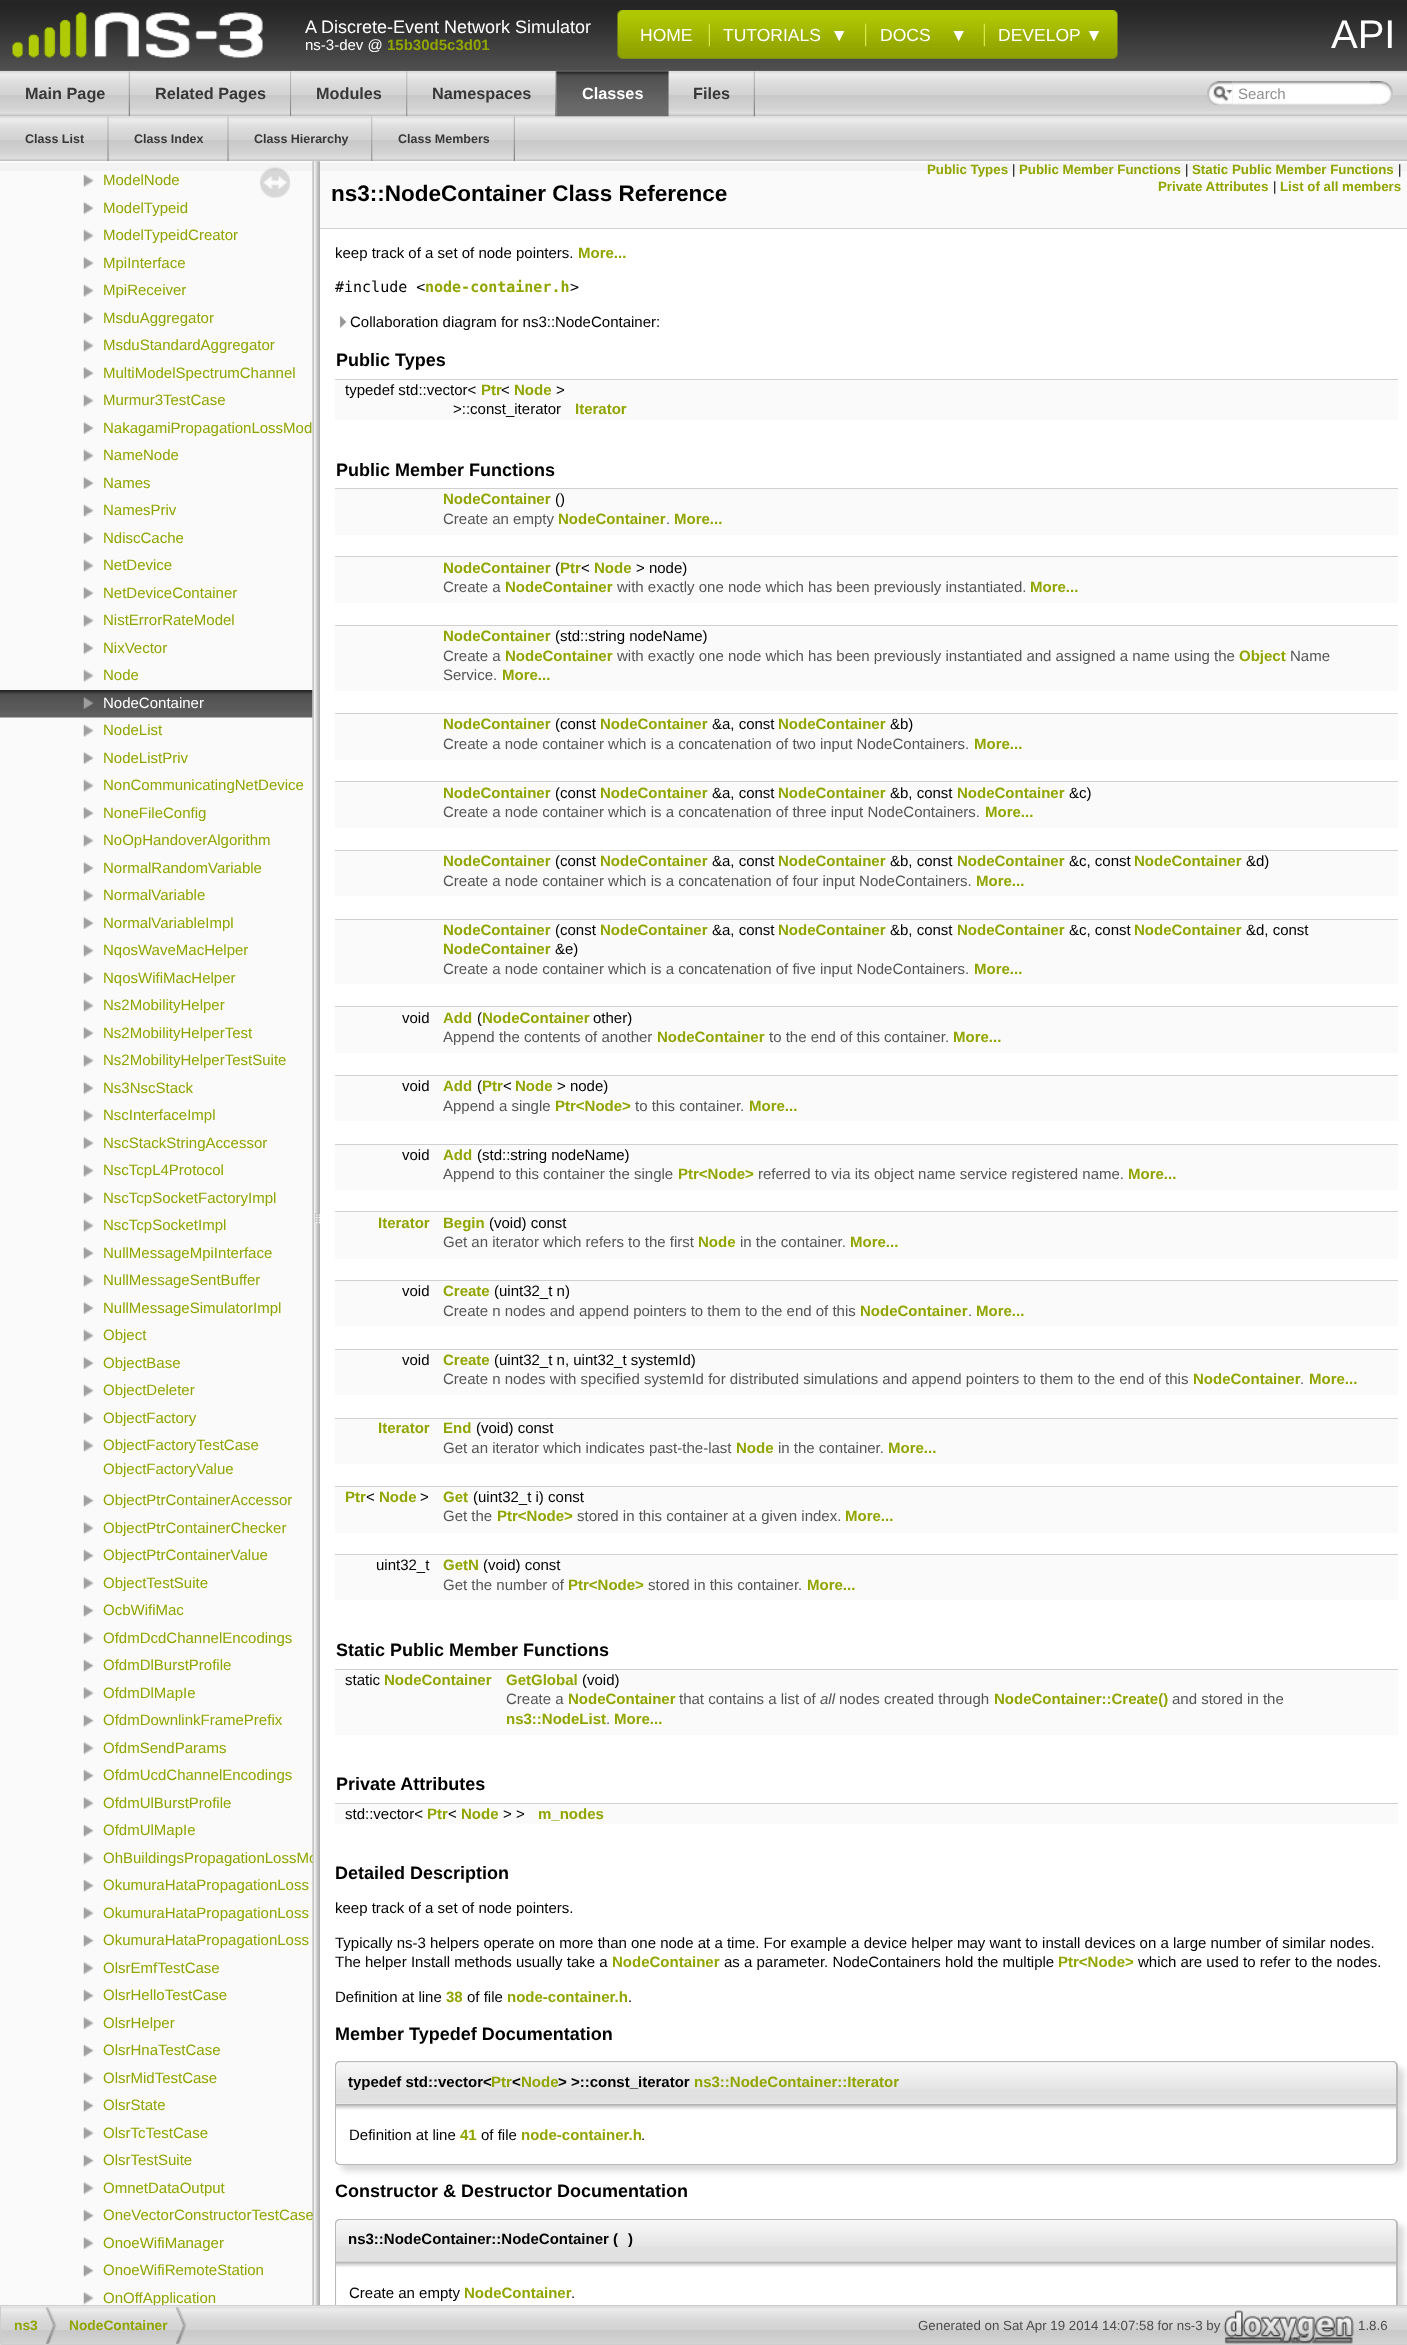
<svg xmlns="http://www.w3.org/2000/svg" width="1407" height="2345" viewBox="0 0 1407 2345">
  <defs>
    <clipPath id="clip1"><path d="M320 161h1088v2144H320z"/></clipPath>
    <clipPath id="clip2"><path d="M0 161h313v2144H0z"/></clipPath>
  </defs>
  <rect width="100%" height="100%" fill="#fff"/>
  <image x="0" y="0" width="1407" height="72" href="img/1.png"/>
  <path d="M0 70h1407v1H0z" fill="#5b5b5b"/>
  <image x="12" y="12" width="251" height="46" href="img/2.png"/>
  <image x="617" y="10" width="501" height="49" href="img/3.png"/>
  <image x="708" y="23" width="2" height="24" href="img/4.png"/>
  <image x="865" y="23" width="2" height="24" href="img/5.png"/>
  <image x="983" y="23" width="2" height="24" href="img/4.png"/>
  <image x="0" y="71" width="1407" height="46" href="img/6.png"/>
  <image x="0" y="116" width="1407" height="46" href="img/21.png"/>
  <path d="M0 116h130v1H0z" fill="#d9d9d9"/>
  <image x="128" y="71" width="2" height="46" href="img/7.png"/>
  <image x="290" y="71" width="2" height="46" href="img/8.png"/>
  <image x="291" y="71" width="117" height="46" href="img/9.png"/>
  <image x="406" y="71" width="2" height="46" href="img/10.png"/>
  <image x="407" y="71" width="149" height="46" href="img/11.png"/>
  <image x="555" y="71" width="2" height="46" href="img/12.png"/>
  <image x="556" y="71" width="113" height="46" href="img/13.png"/>
  <image x="556" y="71" width="113" height="46" href="img/14.png"/>
  <image x="668" y="71" width="87" height="46" href="img/15.png"/>
  <image x="753" y="71" width="2" height="46" href="img/16.png"/>
  <image x="1207" y="81" width="26" height="24" href="img/17.png"/>
  <image x="1213" y="86" width="20" height="16" href="img/18.png"/>
  <image x="1232" y="81" width="147" height="24" href="img/19.png"/>
  <image x="1370" y="81" width="23" height="24" href="img/20.png"/>
  <image x="107" y="116" width="2" height="45" href="img/22.png"/>
  <image x="108" y="116" width="121" height="45" href="img/23.png"/>
  <image x="227" y="116" width="2" height="45" href="img/24.png"/>
  <image x="228" y="116" width="145" height="46" href="img/25.png"/>
  <image x="371" y="116" width="2" height="45" href="img/26.png"/>
  <image x="372" y="116" width="143" height="45" href="img/27.png"/>
  <image x="513" y="116" width="2" height="45" href="img/28.png"/>
  <path d="M0 161h313v2144H0z" fill="#fafafa"/>
  <path d="M0 163h313v8H0z" fill="#f3f3f3"/>
  <image x="260" y="167" width="30" height="31" href="img/29.png"/>
  <image x="83" y="174" width="11" height="13" href="img/30.png"/>
  <image x="83" y="202" width="11" height="12" href="img/31.png"/>
  <image x="83" y="229" width="11" height="13" href="img/30.png"/>
  <image x="83" y="257" width="11" height="12" href="img/31.png"/>
  <image x="83" y="284" width="11" height="13" href="img/30.png"/>
  <image x="83" y="312" width="11" height="12" href="img/31.png"/>
  <image x="83" y="339" width="11" height="13" href="img/30.png"/>
  <image x="83" y="367" width="11" height="12" href="img/31.png"/>
  <image x="83" y="394" width="11" height="13" href="img/30.png"/>
  <image x="83" y="422" width="11" height="12" href="img/31.png"/>
  <image x="83" y="449" width="11" height="13" href="img/30.png"/>
  <image x="83" y="477" width="11" height="12" href="img/31.png"/>
  <image x="83" y="504" width="11" height="13" href="img/32.png"/>
  <image x="83" y="532" width="11" height="12" href="img/31.png"/>
  <image x="83" y="559" width="11" height="13" href="img/30.png"/>
  <image x="83" y="587" width="11" height="12" href="img/31.png"/>
  <image x="83" y="614" width="11" height="13" href="img/30.png"/>
  <image x="83" y="642" width="11" height="12" href="img/31.png"/>
  <image x="83" y="669" width="11" height="13" href="img/30.png"/>
  <image x="0" y="690" width="313" height="28" href="img/33.png"/>
  <image x="83" y="697" width="11" height="12" href="img/34.png"/>
  <image x="83" y="724" width="11" height="13" href="img/30.png"/>
  <image x="83" y="752" width="11" height="12" href="img/31.png"/>
  <image x="83" y="779" width="11" height="13" href="img/30.png"/>
  <image x="83" y="807" width="11" height="12" href="img/31.png"/>
  <image x="83" y="834" width="11" height="13" href="img/30.png"/>
  <image x="83" y="862" width="11" height="12" href="img/31.png"/>
  <image x="83" y="889" width="11" height="13" href="img/30.png"/>
  <image x="83" y="917" width="11" height="12" href="img/31.png"/>
  <image x="83" y="944" width="11" height="13" href="img/30.png"/>
  <image x="83" y="972" width="11" height="12" href="img/31.png"/>
  <image x="83" y="999" width="11" height="13" href="img/30.png"/>
  <image x="83" y="1027" width="11" height="12" href="img/31.png"/>
  <image x="83" y="1054" width="11" height="13" href="img/30.png"/>
  <image x="83" y="1082" width="11" height="12" href="img/31.png"/>
  <image x="83" y="1109" width="11" height="13" href="img/30.png"/>
  <image x="83" y="1137" width="11" height="12" href="img/31.png"/>
  <image x="83" y="1164" width="11" height="13" href="img/30.png"/>
  <image x="83" y="1192" width="11" height="12" href="img/31.png"/>
  <image x="83" y="1219" width="11" height="13" href="img/30.png"/>
  <image x="83" y="1247" width="11" height="12" href="img/31.png"/>
  <image x="83" y="1274" width="11" height="13" href="img/30.png"/>
  <image x="83" y="1302" width="11" height="12" href="img/31.png"/>
  <image x="83" y="1329" width="11" height="13" href="img/30.png"/>
  <image x="83" y="1357" width="11" height="12" href="img/31.png"/>
  <image x="83" y="1384" width="11" height="13" href="img/30.png"/>
  <image x="83" y="1412" width="11" height="12" href="img/31.png"/>
  <image x="83" y="1439" width="11" height="13" href="img/30.png"/>
  <image x="83" y="1494" width="11" height="13" href="img/35.png"/>
  <image x="83" y="1522" width="11" height="13" href="img/36.png"/>
  <image x="83" y="1549" width="11" height="13" href="img/35.png"/>
  <image x="83" y="1577" width="11" height="13" href="img/37.png"/>
  <image x="83" y="1604" width="11" height="13" href="img/35.png"/>
  <image x="83" y="1632" width="11" height="13" href="img/37.png"/>
  <image x="83" y="1659" width="11" height="13" href="img/35.png"/>
  <image x="83" y="1687" width="11" height="13" href="img/37.png"/>
  <image x="83" y="1714" width="11" height="13" href="img/35.png"/>
  <image x="83" y="1742" width="11" height="13" href="img/37.png"/>
  <image x="83" y="1769" width="11" height="13" href="img/35.png"/>
  <image x="83" y="1797" width="11" height="13" href="img/37.png"/>
  <image x="83" y="1824" width="11" height="13" href="img/35.png"/>
  <image x="83" y="1852" width="11" height="13" href="img/37.png"/>
  <image x="83" y="1879" width="11" height="13" href="img/35.png"/>
  <image x="83" y="1907" width="11" height="13" href="img/37.png"/>
  <image x="83" y="1934" width="11" height="13" href="img/35.png"/>
  <image x="83" y="1962" width="11" height="13" href="img/37.png"/>
  <image x="83" y="1989" width="11" height="13" href="img/35.png"/>
  <image x="83" y="2017" width="11" height="13" href="img/37.png"/>
  <image x="83" y="2044" width="11" height="13" href="img/35.png"/>
  <image x="83" y="2072" width="11" height="13" href="img/37.png"/>
  <image x="83" y="2099" width="11" height="13" href="img/35.png"/>
  <image x="83" y="2127" width="11" height="13" href="img/37.png"/>
  <image x="83" y="2154" width="11" height="13" href="img/35.png"/>
  <image x="83" y="2182" width="11" height="13" href="img/37.png"/>
  <image x="83" y="2209" width="11" height="13" href="img/35.png"/>
  <image x="83" y="2237" width="11" height="13" href="img/37.png"/>
  <image x="83" y="2264" width="11" height="13" href="img/35.png"/>
  <image x="83" y="2292" width="11" height="13" href="img/37.png"/>
  <path d="M320 161h1087v67H320z" fill="#fafafa"/>
  <path d="M320 163h1087v8H320z" fill="#f3f3f3"/>
  <path d="M320 228h1087v1H320z" fill="#d0d0d0"/>
  <image x="339" y="316" width="8" height="12" href="img/39.png"/>
  <path d="M335 380h1063v40H335z" fill="#fafafa"/>
  <path d="M335 379h1063v1H335z" fill="#d0d0d0"/>
  <path d="M335 489h1063v21H335z" fill="#fafafa"/>
  <path d="M335 488h1063v1H335z" fill="#d0d0d0"/>
  <path d="M335 510h1063v25H335z" fill="#fafafa"/>
  <path d="M335 557h1063v22H335z" fill="#fafafa"/>
  <path d="M335 556h1063v1H335z" fill="#d0d0d0"/>
  <path d="M335 579h1063v24H335z" fill="#fafafa"/>
  <path d="M335 626h1063v22H335z" fill="#fafafa"/>
  <path d="M335 625h1063v1H335z" fill="#d0d0d0"/>
  <path d="M335 648h1063v43H335z" fill="#fafafa"/>
  <path d="M335 714h1063v21H335z" fill="#fafafa"/>
  <path d="M335 713h1063v1H335z" fill="#d0d0d0"/>
  <path d="M335 735h1063v25H335z" fill="#fafafa"/>
  <path d="M335 782h1063v22H335z" fill="#fafafa"/>
  <path d="M335 781h1063v1H335z" fill="#d0d0d0"/>
  <path d="M335 804h1063v24H335z" fill="#fafafa"/>
  <path d="M335 851h1063v20H335z" fill="#fafafa"/>
  <path d="M335 850h1063v1H335z" fill="#d0d0d0"/>
  <path d="M335 871h1063v25H335z" fill="#fafafa"/>
  <path d="M335 920h1063v40H335z" fill="#fafafa"/>
  <path d="M335 919h1063v1H335z" fill="#d0d0d0"/>
  <path d="M335 960h1063v24H335z" fill="#fafafa"/>
  <path d="M335 1007h1063v22H335z" fill="#fafafa"/>
  <path d="M335 1006h1063v1H335z" fill="#d0d0d0"/>
  <path d="M335 1029h1063v24H335z" fill="#fafafa"/>
  <path d="M335 1076h1063v20H335z" fill="#fafafa"/>
  <path d="M335 1075h1063v1H335z" fill="#d0d0d0"/>
  <path d="M335 1096h1063v25H335z" fill="#fafafa"/>
  <path d="M335 1145h1063v20H335z" fill="#fafafa"/>
  <path d="M335 1144h1063v1H335z" fill="#d0d0d0"/>
  <path d="M335 1165h1063v25H335z" fill="#fafafa"/>
  <path d="M335 1212h1063v22H335z" fill="#fafafa"/>
  <path d="M335 1211h1063v1H335z" fill="#d0d0d0"/>
  <path d="M335 1234h1063v25H335z" fill="#fafafa"/>
  <path d="M335 1281h1063v22H335z" fill="#fafafa"/>
  <path d="M335 1280h1063v1H335z" fill="#d0d0d0"/>
  <path d="M335 1303h1063v23H335z" fill="#fafafa"/>
  <path d="M335 1350h1063v21H335z" fill="#fafafa"/>
  <path d="M335 1349h1063v1H335z" fill="#d0d0d0"/>
  <path d="M335 1371h1063v24H335z" fill="#fafafa"/>
  <path d="M335 1419h1063v20H335z" fill="#fafafa"/>
  <path d="M335 1418h1063v1H335z" fill="#d0d0d0"/>
  <path d="M335 1439h1063v25H335z" fill="#fafafa"/>
  <path d="M335 1487h1063v21H335z" fill="#fafafa"/>
  <path d="M335 1486h1063v1H335z" fill="#d0d0d0"/>
  <path d="M335 1508h1063v25H335z" fill="#fafafa"/>
  <path d="M335 1555h1063v21H335z" fill="#fafafa"/>
  <path d="M335 1554h1063v1H335z" fill="#d0d0d0"/>
  <path d="M335 1576h1063v24H335z" fill="#fafafa"/>
  <path d="M335 1670h1063v20H335z" fill="#fafafa"/>
  <path d="M335 1669h1063v1H335z" fill="#d0d0d0"/>
  <path d="M335 1690h1063v45H335z" fill="#fafafa"/>
  <path d="M335 1804h1063v20H335z" fill="#fafafa"/>
  <path d="M335 1803h1063v1H335z" fill="#d0d0d0"/>
  <rect x="341" y="2068" width="1063" height="42" rx="5" fill="#00000026" filter="blur(3px)"/>
  <path d="M340 2061H1393C1396 2061 1398 2063 1398 2066V2104H335V2066C335 2063 337 2061 340 2061Z" fill="#e8e8e8"/>
  <image x="335" y="2062" width="1063" height="41" href="img/40.png"/>
  <path d="M340 2061H1392C1395 2061 1398 2063 1398 2066V2104H335V2066C335 2063 337 2061 340 2061ZM340 2062H1392C1395 2062 1396 2064 1396 2066V2104H336V2066C336 2064 338 2062 340 2062Z" fill="#b9b9b9" fill-rule="evenodd"/>
  <rect x="341" y="2110" width="1063" height="61" rx="5" fill="#00000026" filter="blur(3px)"/>
  <path d="M335 2104H1398V2160C1398 2163 1396 2165 1393 2165H340C337 2165 335 2163 335 2160Z" fill="#fff"/>
  <image x="336" y="2104" width="1060" height="6" href="img/41.png"/>
  <path d="M335 2104H1398V2160C1398 2163 1395 2165 1392 2165H340C337 2165 335 2163 335 2160ZM336 2104H1396V2160C1396 2162 1395 2164 1392 2164H340C338 2164 336 2162 336 2160Z" fill="#b9b9b9" fill-rule="evenodd"/>
  <rect x="341" y="2225" width="1063" height="43" rx="5" fill="#00000026" filter="blur(3px)"/>
  <path d="M340 2219H1393C1396 2219 1398 2221 1398 2224V2261H335V2224C335 2221 337 2219 340 2219Z" fill="#e8e8e8"/>
  <image x="335" y="2220" width="1062" height="41" href="img/42.png"/>
  <path d="M340 2219H1392C1395 2219 1398 2221 1398 2224V2261H335V2224C335 2221 337 2219 340 2219ZM340 2220H1392C1395 2220 1396 2222 1396 2224V2261H336V2224C336 2222 338 2220 340 2220Z" fill="#b9b9b9" fill-rule="evenodd"/>
  <rect x="341" y="2268" width="1063" height="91" rx="5" fill="#00000026" filter="blur(3px)"/>
  <path d="M337 2261h1059v44H337z" fill="#fff"/>
  <image x="336" y="2261" width="1060" height="6" href="img/43.png"/>
  <g clip-path="url(#clip1)">
    <path d="M335 2261H1398V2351C1398 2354 1395 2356 1392 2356H340C337 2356 335 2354 335 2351ZM336 2261H1396V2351C1396 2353 1395 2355 1392 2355H340C338 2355 336 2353 336 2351Z" fill="#b9b9b9" fill-rule="evenodd"/>
  </g>
  <image x="1" y="2306" width="1406" height="38" href="img/44.png"/>
  <path d="M0.5 2305.5h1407v39H0.5z" fill="none" stroke="#cecece"/>
  <image x="46" y="2307" width="11" height="37" href="img/45.png"/>
  <image x="176" y="2307" width="11" height="37" href="img/45.png"/>
  <image x="1223" y="2310" width="131" height="34" href="img/46.png"/>
  <text x="305" y="33" font-family="Liberation Sans" font-size="18" fill="#fff">A Discrete-Event Network Simulator</text>
  <text x="305" y="50" font-family="Liberation Sans" font-size="15" fill="#fff">ns-3-dev @</text>
  <text x="387" y="50" font-family="Liberation Sans" font-size="15" font-weight="bold" fill="#91a501">15b30d5c3d01</text>
  <g font-family="Liberation Sans" font-size="17.5" fill="#fff">
    <text x="640" y="41">HOME</text>
    <text x="723" y="41" xml:space="preserve">TUTORIALS  ▼</text>
    <text x="880" y="41" xml:space="preserve">DOCS    ▼</text>
    <text x="998" y="41">DEVELOP ▼</text>
  </g>
  <text x="1331" y="48" font-family="Liberation Sans" font-size="40" fill="#fff">API</text>
  <g font-family="Liberation Sans" font-size="16.25" font-weight="bold" fill="#373737">
    <text x="25" y="99">Main Page</text>
    <text x="155" y="99">Related Pages</text>
    <text x="316" y="99">Modules</text>
    <text x="432" y="99">Namespaces</text>
  </g>
  <text x="582" y="99" font-family="Liberation Sans" font-size="16.25" font-weight="bold" fill="#fff">Classes</text>
  <text x="693" y="99" font-family="Liberation Sans" font-size="16.25" font-weight="bold" fill="#373737">Files</text>
  <text x="1238" y="99" font-family="Liberation Sans" font-size="15" fill="#909090">Search</text>
  <g font-family="Liberation Sans" font-size="12.5" font-weight="bold" fill="#373737">
    <text x="25" y="143">Class List</text>
    <text x="134" y="143">Class Index</text>
    <text x="254" y="143">Class Hierarchy</text>
    <text x="398" y="143">Class Members</text>
  </g>
  <g font-family="Liberation Sans" font-size="15" fill="#91a501">
    <text x="103" y="185">ModelNode</text>
    <text x="103" y="213">ModelTypeid</text>
    <text x="103" y="240">ModelTypeidCreator</text>
    <text x="103" y="268">MpiInterface</text>
    <text x="103" y="295">MpiReceiver</text>
    <text x="103" y="323">MsduAggregator</text>
    <text x="103" y="350">MsduStandardAggregator</text>
    <text x="103" y="378">MultiModelSpectrumChannel</text>
    <text x="103" y="405">Murmur3TestCase</text>
    <text x="103" y="433">NakagamiPropagationLossMod</text>
    <text x="103" y="460">NameNode</text>
    <text x="103" y="488">Names</text>
    <text x="103" y="515">NamesPriv</text>
    <text x="103" y="543">NdiscCache</text>
    <text x="103" y="570">NetDevice</text>
    <text x="103" y="598">NetDeviceContainer</text>
    <text x="103" y="625">NistErrorRateModel</text>
    <text x="103" y="653">NixVector</text>
    <text x="103" y="680">Node</text>
  </g>
  <text x="103" y="708" font-family="Liberation Sans" font-size="15" fill="#fff">NodeContainer</text>
  <g font-family="Liberation Sans" font-size="15" fill="#91a501">
    <text x="103" y="735">NodeList</text>
    <text x="103" y="763">NodeListPriv</text>
    <text x="103" y="790">NonCommunicatingNetDevice</text>
    <text x="103" y="818">NoneFileConfig</text>
    <text x="103" y="845">NoOpHandoverAlgorithm</text>
    <text x="103" y="873">NormalRandomVariable</text>
    <text x="103" y="900">NormalVariable</text>
    <text x="103" y="928">NormalVariableImpl</text>
    <text x="103" y="955">NqosWaveMacHelper</text>
    <text x="103" y="983">NqosWifiMacHelper</text>
    <text x="103" y="1010">Ns2MobilityHelper</text>
    <text x="103" y="1038">Ns2MobilityHelperTest</text>
    <text x="103" y="1065">Ns2MobilityHelperTestSuite</text>
    <text x="103" y="1093">Ns3NscStack</text>
    <text x="103" y="1120">NscInterfaceImpl</text>
    <text x="103" y="1148">NscStackStringAccessor</text>
    <text x="103" y="1175">NscTcpL4Protocol</text>
    <text x="103" y="1203">NscTcpSocketFactoryImpl</text>
    <text x="103" y="1230">NscTcpSocketImpl</text>
    <text x="103" y="1258">NullMessageMpiInterface</text>
    <text x="103" y="1285">NullMessageSentBuffer</text>
    <text x="103" y="1313">NullMessageSimulatorImpl</text>
    <text x="103" y="1340">Object</text>
    <text x="103" y="1368">ObjectBase</text>
    <text x="103" y="1395">ObjectDeleter</text>
    <text x="103" y="1423">ObjectFactory</text>
    <text x="103" y="1450">ObjectFactoryTestCase</text>
    <text x="103" y="1474">ObjectFactoryValue</text>
    <text x="103" y="1505">ObjectPtrContainerAccessor</text>
    <text x="103" y="1533">ObjectPtrContainerChecker</text>
    <text x="103" y="1560">ObjectPtrContainerValue</text>
    <text x="103" y="1588">ObjectTestSuite</text>
    <text x="103" y="1615">OcbWifiMac</text>
    <text x="103" y="1643">OfdmDcdChannelEncodings</text>
    <text x="103" y="1670">OfdmDlBurstProfile</text>
    <text x="103" y="1698">OfdmDlMapIe</text>
    <text x="103" y="1725">OfdmDownlinkFramePrefix</text>
    <text x="103" y="1753">OfdmSendParams</text>
    <text x="103" y="1780">OfdmUcdChannelEncodings</text>
    <text x="103" y="1808">OfdmUlBurstProfile</text>
    <text x="103" y="1835">OfdmUlMapIe</text>
    <text x="103" y="1863">OhBuildingsPropagationLossMo</text>
    <text x="103" y="1890">OkumuraHataPropagationLoss</text>
    <text x="103" y="1918">OkumuraHataPropagationLoss</text>
    <text x="103" y="1945">OkumuraHataPropagationLoss</text>
    <text x="103" y="1973">OlsrEmfTestCase</text>
    <text x="103" y="2000">OlsrHelloTestCase</text>
    <text x="103" y="2028">OlsrHelper</text>
    <text x="103" y="2055">OlsrHnaTestCase</text>
    <text x="103" y="2083">OlsrMidTestCase</text>
    <text x="103" y="2110">OlsrState</text>
    <text x="103" y="2138">OlsrTcTestCase</text>
    <text x="103" y="2165">OlsrTestSuite</text>
    <text x="103" y="2193">OmnetDataOutput</text>
    <text x="103" y="2220">OneVectorConstructorTestCase</text>
    <text x="103" y="2248">OnoeWifiManager</text>
    <text x="103" y="2275">OnoeWifiRemoteStation</text>
  </g>
  <g clip-path="url(#clip2)">
    <text x="103" y="2303" font-family="Liberation Sans" font-size="15" fill="#91a501">OnOffApplication</text>
  </g>
  <image x="312" y="161" width="8" height="2144" href="img/38.png"/>
  <text x="331" y="201" font-family="Liberation Sans" font-size="22.5" font-weight="bold" fill="#000">ns3::NodeContainer Class Reference</text>
  <text x="927" y="174" font-family="Liberation Sans" font-size="13.3" font-weight="bold" fill="#91a501">Public Types</text>
  <text x="1012" y="174" font-family="Liberation Sans" font-size="13.3" fill="#000">|</text>
  <text x="1019" y="174" font-family="Liberation Sans" font-size="13.3" font-weight="bold" fill="#91a501">Public Member Functions</text>
  <text x="1185" y="174" font-family="Liberation Sans" font-size="13.3" fill="#000">|</text>
  <text x="1192" y="174" font-family="Liberation Sans" font-size="13.3" font-weight="bold" fill="#91a501">Static Public Member Functions</text>
  <text x="1398" y="174" font-family="Liberation Sans" font-size="13.3" fill="#000">|</text>
  <text x="1158" y="191" font-family="Liberation Sans" font-size="13.3" font-weight="bold" fill="#91a501">Private Attributes</text>
  <text x="1273" y="191" font-family="Liberation Sans" font-size="13.3" fill="#000">|</text>
  <text x="1280" y="191" font-family="Liberation Sans" font-size="13.3" font-weight="bold" fill="#91a501">List of all members</text>
  <text x="335" y="258" font-family="Liberation Sans" font-size="15" fill="#000">keep track of a set of node pointers.</text>
  <text x="578" y="258" font-family="Liberation Sans" font-size="15" font-weight="bold" fill="#91a501">More...</text>
  <text x="335" y="292" font-family="DejaVu Sans Mono" font-size="15" fill="#000">#include &lt;</text>
  <text x="425" y="292" font-family="DejaVu Sans Mono" font-size="15" font-weight="bold" fill="#91a501">node-container.h</text>
  <text x="570" y="292" font-family="DejaVu Sans Mono" font-size="15" fill="#000">&gt;</text>
  <text x="350" y="327" font-family="Liberation Sans" font-size="15" fill="#000">Collaboration diagram for ns3::NodeContainer:</text>
  <text x="336" y="366" font-family="Liberation Sans" font-size="18" font-weight="bold" fill="#000">Public Types</text>
  <text x="345" y="395" font-family="Liberation Sans" font-size="15" fill="#000">typedef std::vector&lt;</text>
  <text x="481" y="395" font-family="Liberation Sans" font-size="15" font-weight="bold" fill="#91a501">Ptr</text>
  <text x="501" y="395" font-family="Liberation Sans" font-size="15" fill="#000">&lt;</text>
  <text x="514" y="395" font-family="Liberation Sans" font-size="15" font-weight="bold" fill="#91a501">Node</text>
  <g font-family="Liberation Sans" font-size="15" fill="#000">
    <text x="556" y="395">&gt;</text>
    <text x="453" y="414">&gt;::const_iterator</text>
  </g>
  <text x="575" y="414" font-family="Liberation Sans" font-size="15" font-weight="bold" fill="#91a501">Iterator</text>
  <text x="336" y="476" font-family="Liberation Sans" font-size="18" font-weight="bold" fill="#000">Public Member Functions</text>
  <text x="443" y="504" font-family="Liberation Sans" font-size="15" font-weight="bold" fill="#91a501">NodeContainer</text>
  <text x="555" y="504" font-family="Liberation Sans" font-size="15" fill="#000">()</text>
  <text x="443" y="524" font-family="Liberation Sans" font-size="15" fill="#555">Create an empty</text>
  <text x="558" y="524" font-family="Liberation Sans" font-size="15" font-weight="bold" fill="#91a501">NodeContainer</text>
  <text x="666" y="524" font-family="Liberation Sans" font-size="15" fill="#555">.</text>
  <g font-family="Liberation Sans" font-size="15" font-weight="bold" fill="#91a501">
    <text x="674" y="524">More...</text>
    <text x="443" y="573">NodeContainer</text>
  </g>
  <text x="555" y="573" font-family="Liberation Sans" font-size="15" fill="#000">(</text>
  <text x="560" y="573" font-family="Liberation Sans" font-size="15" font-weight="bold" fill="#91a501">Ptr</text>
  <text x="581" y="573" font-family="Liberation Sans" font-size="15" fill="#000">&lt;</text>
  <text x="594" y="573" font-family="Liberation Sans" font-size="15" font-weight="bold" fill="#91a501">Node</text>
  <text x="636" y="573" font-family="Liberation Sans" font-size="15" fill="#000">&gt; node)</text>
  <text x="443" y="592" font-family="Liberation Sans" font-size="15" fill="#555">Create a</text>
  <text x="505" y="592" font-family="Liberation Sans" font-size="15" font-weight="bold" fill="#91a501">NodeContainer</text>
  <text x="617" y="592" font-family="Liberation Sans" font-size="15" fill="#555">with exactly one node which has been previously instantiated.</text>
  <g font-family="Liberation Sans" font-size="15" font-weight="bold" fill="#91a501">
    <text x="1030" y="592">More...</text>
    <text x="443" y="641">NodeContainer</text>
  </g>
  <text x="555" y="641" font-family="Liberation Sans" font-size="15" fill="#000">(std::string nodeName)</text>
  <text x="443" y="661" font-family="Liberation Sans" font-size="15" fill="#555">Create a</text>
  <text x="505" y="661" font-family="Liberation Sans" font-size="15" font-weight="bold" fill="#91a501">NodeContainer</text>
  <text x="617" y="661" font-family="Liberation Sans" font-size="15" fill="#555">with exactly one node which has been previously instantiated and assigned a name using the</text>
  <text x="1239" y="661" font-family="Liberation Sans" font-size="15" font-weight="bold" fill="#91a501">Object</text>
  <g font-family="Liberation Sans" font-size="15" fill="#555">
    <text x="1290" y="661">Name</text>
    <text x="443" y="680">Service.</text>
  </g>
  <g font-family="Liberation Sans" font-size="15" font-weight="bold" fill="#91a501">
    <text x="502" y="680">More...</text>
    <text x="443" y="729">NodeContainer</text>
  </g>
  <text x="555" y="729" font-family="Liberation Sans" font-size="15" fill="#000">(const</text>
  <text x="600" y="729" font-family="Liberation Sans" font-size="15" font-weight="bold" fill="#91a501">NodeContainer</text>
  <text x="712" y="729" font-family="Liberation Sans" font-size="15" fill="#000">&amp;a, const</text>
  <text x="778" y="729" font-family="Liberation Sans" font-size="15" font-weight="bold" fill="#91a501">NodeContainer</text>
  <text x="890" y="729" font-family="Liberation Sans" font-size="15" fill="#000">&amp;b)</text>
  <text x="443" y="749" font-family="Liberation Sans" font-size="15" fill="#555">Create a node container which is a concatenation of two input NodeContainers.</text>
  <g font-family="Liberation Sans" font-size="15" font-weight="bold" fill="#91a501">
    <text x="974" y="749">More...</text>
    <text x="443" y="798">NodeContainer</text>
  </g>
  <text x="555" y="798" font-family="Liberation Sans" font-size="15" fill="#000">(const</text>
  <text x="600" y="798" font-family="Liberation Sans" font-size="15" font-weight="bold" fill="#91a501">NodeContainer</text>
  <text x="712" y="798" font-family="Liberation Sans" font-size="15" fill="#000">&amp;a, const</text>
  <text x="778" y="798" font-family="Liberation Sans" font-size="15" font-weight="bold" fill="#91a501">NodeContainer</text>
  <text x="890" y="798" font-family="Liberation Sans" font-size="15" fill="#000">&amp;b, const</text>
  <text x="957" y="798" font-family="Liberation Sans" font-size="15" font-weight="bold" fill="#91a501">NodeContainer</text>
  <text x="1069" y="798" font-family="Liberation Sans" font-size="15" fill="#000">&amp;c)</text>
  <text x="443" y="817" font-family="Liberation Sans" font-size="15" fill="#555">Create a node container which is a concatenation of three input NodeContainers.</text>
  <g font-family="Liberation Sans" font-size="15" font-weight="bold" fill="#91a501">
    <text x="985" y="817">More...</text>
    <text x="443" y="866">NodeContainer</text>
  </g>
  <text x="555" y="866" font-family="Liberation Sans" font-size="15" fill="#000">(const</text>
  <text x="600" y="866" font-family="Liberation Sans" font-size="15" font-weight="bold" fill="#91a501">NodeContainer</text>
  <text x="712" y="866" font-family="Liberation Sans" font-size="15" fill="#000">&amp;a, const</text>
  <text x="778" y="866" font-family="Liberation Sans" font-size="15" font-weight="bold" fill="#91a501">NodeContainer</text>
  <text x="890" y="866" font-family="Liberation Sans" font-size="15" fill="#000">&amp;b, const</text>
  <text x="957" y="866" font-family="Liberation Sans" font-size="15" font-weight="bold" fill="#91a501">NodeContainer</text>
  <text x="1069" y="866" font-family="Liberation Sans" font-size="15" fill="#000">&amp;c, const</text>
  <text x="1134" y="866" font-family="Liberation Sans" font-size="15" font-weight="bold" fill="#91a501">NodeContainer</text>
  <text x="1246" y="866" font-family="Liberation Sans" font-size="15" fill="#000">&amp;d)</text>
  <text x="443" y="886" font-family="Liberation Sans" font-size="15" fill="#555">Create a node container which is a concatenation of four input NodeContainers.</text>
  <g font-family="Liberation Sans" font-size="15" font-weight="bold" fill="#91a501">
    <text x="976" y="886">More...</text>
    <text x="443" y="935">NodeContainer</text>
  </g>
  <text x="555" y="935" font-family="Liberation Sans" font-size="15" fill="#000">(const</text>
  <text x="600" y="935" font-family="Liberation Sans" font-size="15" font-weight="bold" fill="#91a501">NodeContainer</text>
  <text x="712" y="935" font-family="Liberation Sans" font-size="15" fill="#000">&amp;a, const</text>
  <text x="778" y="935" font-family="Liberation Sans" font-size="15" font-weight="bold" fill="#91a501">NodeContainer</text>
  <text x="890" y="935" font-family="Liberation Sans" font-size="15" fill="#000">&amp;b, const</text>
  <text x="957" y="935" font-family="Liberation Sans" font-size="15" font-weight="bold" fill="#91a501">NodeContainer</text>
  <text x="1069" y="935" font-family="Liberation Sans" font-size="15" fill="#000">&amp;c, const</text>
  <text x="1134" y="935" font-family="Liberation Sans" font-size="15" font-weight="bold" fill="#91a501">NodeContainer</text>
  <text x="1246" y="935" font-family="Liberation Sans" font-size="15" fill="#000">&amp;d, const</text>
  <text x="443" y="954" font-family="Liberation Sans" font-size="15" font-weight="bold" fill="#91a501">NodeContainer</text>
  <text x="555" y="954" font-family="Liberation Sans" font-size="15" fill="#000">&amp;e)</text>
  <text x="443" y="974" font-family="Liberation Sans" font-size="15" fill="#555">Create a node container which is a concatenation of five input NodeContainers.</text>
  <text x="974" y="974" font-family="Liberation Sans" font-size="15" font-weight="bold" fill="#91a501">More...</text>
  <text x="402" y="1023" font-family="Liberation Sans" font-size="15" fill="#000">void</text>
  <text x="443" y="1023" font-family="Liberation Sans" font-size="15" font-weight="bold" fill="#91a501">Add</text>
  <text x="477" y="1023" font-family="Liberation Sans" font-size="15" fill="#000">(</text>
  <text x="482" y="1023" font-family="Liberation Sans" font-size="15" font-weight="bold" fill="#91a501">NodeContainer</text>
  <text x="593" y="1023" font-family="Liberation Sans" font-size="15" fill="#000">other)</text>
  <text x="443" y="1042" font-family="Liberation Sans" font-size="15" fill="#555">Append the contents of another</text>
  <text x="657" y="1042" font-family="Liberation Sans" font-size="15" font-weight="bold" fill="#91a501">NodeContainer</text>
  <text x="769" y="1042" font-family="Liberation Sans" font-size="15" fill="#555">to the end of this container.</text>
  <text x="953" y="1042" font-family="Liberation Sans" font-size="15" font-weight="bold" fill="#91a501">More...</text>
  <text x="402" y="1091" font-family="Liberation Sans" font-size="15" fill="#000">void</text>
  <text x="443" y="1091" font-family="Liberation Sans" font-size="15" font-weight="bold" fill="#91a501">Add</text>
  <text x="477" y="1091" font-family="Liberation Sans" font-size="15" fill="#000">(</text>
  <text x="482" y="1091" font-family="Liberation Sans" font-size="15" font-weight="bold" fill="#91a501">Ptr</text>
  <text x="503" y="1091" font-family="Liberation Sans" font-size="15" fill="#000">&lt;</text>
  <text x="515" y="1091" font-family="Liberation Sans" font-size="15" font-weight="bold" fill="#91a501">Node</text>
  <text x="557" y="1091" font-family="Liberation Sans" font-size="15" fill="#000">&gt; node)</text>
  <text x="443" y="1111" font-family="Liberation Sans" font-size="15" fill="#555">Append a single</text>
  <text x="555" y="1111" font-family="Liberation Sans" font-size="15" font-weight="bold" fill="#91a501">Ptr&lt;Node&gt;</text>
  <text x="635" y="1111" font-family="Liberation Sans" font-size="15" fill="#555">to this container.</text>
  <text x="749" y="1111" font-family="Liberation Sans" font-size="15" font-weight="bold" fill="#91a501">More...</text>
  <text x="402" y="1160" font-family="Liberation Sans" font-size="15" fill="#000">void</text>
  <text x="443" y="1160" font-family="Liberation Sans" font-size="15" font-weight="bold" fill="#91a501">Add</text>
  <text x="477" y="1160" font-family="Liberation Sans" font-size="15" fill="#000">(std::string nodeName)</text>
  <text x="443" y="1179" font-family="Liberation Sans" font-size="15" fill="#555">Append to this container the single</text>
  <text x="678" y="1179" font-family="Liberation Sans" font-size="15" font-weight="bold" fill="#91a501">Ptr&lt;Node&gt;</text>
  <text x="758" y="1179" font-family="Liberation Sans" font-size="15" fill="#555">referred to via its object name service registered name.</text>
  <g font-family="Liberation Sans" font-size="15" font-weight="bold" fill="#91a501">
    <text x="1128" y="1179">More...</text>
    <text x="378" y="1228">Iterator</text>
    <text x="443" y="1228">Begin</text>
  </g>
  <text x="489" y="1228" font-family="Liberation Sans" font-size="15" fill="#000">(void) const</text>
  <text x="443" y="1247" font-family="Liberation Sans" font-size="15" fill="#555">Get an iterator which refers to the first</text>
  <text x="698" y="1247" font-family="Liberation Sans" font-size="15" font-weight="bold" fill="#91a501">Node</text>
  <text x="740" y="1247" font-family="Liberation Sans" font-size="15" fill="#555">in the container.</text>
  <text x="850" y="1247" font-family="Liberation Sans" font-size="15" font-weight="bold" fill="#91a501">More...</text>
  <text x="402" y="1296" font-family="Liberation Sans" font-size="15" fill="#000">void</text>
  <text x="443" y="1296" font-family="Liberation Sans" font-size="15" font-weight="bold" fill="#91a501">Create</text>
  <text x="494" y="1296" font-family="Liberation Sans" font-size="15" fill="#000">(uint32_t n)</text>
  <text x="443" y="1316" font-family="Liberation Sans" font-size="15" fill="#555">Create n nodes and append pointers to them to the end of this</text>
  <text x="860" y="1316" font-family="Liberation Sans" font-size="15" font-weight="bold" fill="#91a501">NodeContainer</text>
  <text x="968" y="1316" font-family="Liberation Sans" font-size="15" fill="#555">.</text>
  <text x="976" y="1316" font-family="Liberation Sans" font-size="15" font-weight="bold" fill="#91a501">More...</text>
  <text x="402" y="1365" font-family="Liberation Sans" font-size="15" fill="#000">void</text>
  <text x="443" y="1365" font-family="Liberation Sans" font-size="15" font-weight="bold" fill="#91a501">Create</text>
  <text x="494" y="1365" font-family="Liberation Sans" font-size="15" fill="#000">(uint32_t n, uint32_t systemId)</text>
  <text x="443" y="1384" font-family="Liberation Sans" font-size="15" fill="#555">Create n nodes with specified systemId for distributed simulations and append pointers to them to the end of this</text>
  <text x="1193" y="1384" font-family="Liberation Sans" font-size="15" font-weight="bold" fill="#91a501">NodeContainer</text>
  <text x="1300" y="1384" font-family="Liberation Sans" font-size="15" fill="#555">.</text>
  <g font-family="Liberation Sans" font-size="15" font-weight="bold" fill="#91a501">
    <text x="1309" y="1384">More...</text>
    <text x="378" y="1433">Iterator</text>
    <text x="443" y="1433">End</text>
  </g>
  <text x="476" y="1433" font-family="Liberation Sans" font-size="15" fill="#000">(void) const</text>
  <text x="443" y="1453" font-family="Liberation Sans" font-size="15" fill="#555">Get an iterator which indicates past-the-last</text>
  <text x="736" y="1453" font-family="Liberation Sans" font-size="15" font-weight="bold" fill="#91a501">Node</text>
  <text x="778" y="1453" font-family="Liberation Sans" font-size="15" fill="#555">in the container.</text>
  <g font-family="Liberation Sans" font-size="15" font-weight="bold" fill="#91a501">
    <text x="888" y="1453">More...</text>
    <text x="345" y="1502">Ptr</text>
  </g>
  <text x="366" y="1502" font-family="Liberation Sans" font-size="15" fill="#000">&lt;</text>
  <text x="379" y="1502" font-family="Liberation Sans" font-size="15" font-weight="bold" fill="#91a501">Node</text>
  <text x="420" y="1502" font-family="Liberation Sans" font-size="15" fill="#000">&gt;</text>
  <text x="443" y="1502" font-family="Liberation Sans" font-size="15" font-weight="bold" fill="#91a501">Get</text>
  <text x="473" y="1502" font-family="Liberation Sans" font-size="15" fill="#000">(uint32_t i) const</text>
  <text x="443" y="1521" font-family="Liberation Sans" font-size="15" fill="#555">Get the</text>
  <text x="497" y="1521" font-family="Liberation Sans" font-size="15" font-weight="bold" fill="#91a501">Ptr&lt;Node&gt;</text>
  <text x="577" y="1521" font-family="Liberation Sans" font-size="15" fill="#555">stored in this container at a given index.</text>
  <text x="845" y="1521" font-family="Liberation Sans" font-size="15" font-weight="bold" fill="#91a501">More...</text>
  <text x="376" y="1570" font-family="Liberation Sans" font-size="15" fill="#000">uint32_t</text>
  <text x="443" y="1570" font-family="Liberation Sans" font-size="15" font-weight="bold" fill="#91a501">GetN</text>
  <text x="483" y="1570" font-family="Liberation Sans" font-size="15" fill="#000">(void) const</text>
  <text x="443" y="1590" font-family="Liberation Sans" font-size="15" fill="#555">Get the number of</text>
  <text x="568" y="1590" font-family="Liberation Sans" font-size="15" font-weight="bold" fill="#91a501">Ptr&lt;Node&gt;</text>
  <text x="648" y="1590" font-family="Liberation Sans" font-size="15" fill="#555">stored in this container.</text>
  <text x="807" y="1590" font-family="Liberation Sans" font-size="15" font-weight="bold" fill="#91a501">More...</text>
  <text x="336" y="1656" font-family="Liberation Sans" font-size="18" font-weight="bold" fill="#000">Static Public Member Functions</text>
  <text x="345" y="1685" font-family="Liberation Sans" font-size="15" fill="#000">static</text>
  <g font-family="Liberation Sans" font-size="15" font-weight="bold" fill="#91a501">
    <text x="384" y="1685">NodeContainer</text>
    <text x="506" y="1685">GetGlobal</text>
  </g>
  <text x="582" y="1685" font-family="Liberation Sans" font-size="15" fill="#000">(void)</text>
  <text x="506" y="1704" font-family="Liberation Sans" font-size="15" fill="#555">Create a</text>
  <text x="568" y="1704" font-family="Liberation Sans" font-size="15" font-weight="bold" fill="#91a501">NodeContainer</text>
  <text x="679" y="1704" font-family="Liberation Sans" font-size="15" fill="#555">that contains a list of</text>
  <text x="820" y="1704" font-family="Liberation Sans" font-size="15" font-style="italic" fill="#555">all</text>
  <text x="839" y="1704" font-family="Liberation Sans" font-size="15" fill="#555">nodes created through</text>
  <text x="994" y="1704" font-family="Liberation Sans" font-size="15" font-weight="bold" fill="#91a501">NodeContainer::Create()</text>
  <text x="1172" y="1704" font-family="Liberation Sans" font-size="15" fill="#555">and stored in the</text>
  <text x="506" y="1724" font-family="Liberation Sans" font-size="15" font-weight="bold" fill="#91a501">ns3::NodeList</text>
  <text x="606" y="1724" font-family="Liberation Sans" font-size="15" fill="#555">.</text>
  <text x="614" y="1724" font-family="Liberation Sans" font-size="15" font-weight="bold" fill="#91a501">More...</text>
  <text x="336" y="1790" font-family="Liberation Sans" font-size="18" font-weight="bold" fill="#000">Private Attributes</text>
  <text x="345" y="1819" font-family="Liberation Sans" font-size="15" fill="#000">std::vector&lt;</text>
  <text x="427" y="1819" font-family="Liberation Sans" font-size="15" font-weight="bold" fill="#91a501">Ptr</text>
  <text x="448" y="1819" font-family="Liberation Sans" font-size="15" fill="#000">&lt;</text>
  <text x="461" y="1819" font-family="Liberation Sans" font-size="15" font-weight="bold" fill="#91a501">Node</text>
  <text x="503" y="1819" font-family="Liberation Sans" font-size="15" fill="#000">&gt; &gt;</text>
  <text x="538" y="1819" font-family="Liberation Sans" font-size="15" font-weight="bold" fill="#91a501">m_nodes</text>
  <text x="335" y="1879" font-family="Liberation Sans" font-size="18" font-weight="bold" fill="#000">Detailed Description</text>
  <g font-family="Liberation Sans" font-size="15" fill="#000">
    <text x="335" y="1913">keep track of a set of node pointers.</text>
    <text x="335" y="1948">Typically ns-3 helpers operate on more than one node at a time. For example a device helper may want to install devices on a large number of similar nodes.</text>
    <text x="335" y="1967">The helper Install methods usually take a</text>
  </g>
  <text x="612" y="1967" font-family="Liberation Sans" font-size="15" font-weight="bold" fill="#91a501">NodeContainer</text>
  <text x="724" y="1967" font-family="Liberation Sans" font-size="15" fill="#000">as a parameter. NodeContainers hold the multiple</text>
  <text x="1058" y="1967" font-family="Liberation Sans" font-size="15" font-weight="bold" fill="#91a501">Ptr&lt;Node&gt;</text>
  <g font-family="Liberation Sans" font-size="15" fill="#000">
    <text x="1138" y="1967">which are used to refer to the nodes.</text>
    <text x="335" y="2002">Definition at line</text>
  </g>
  <text x="446" y="2002" font-family="Liberation Sans" font-size="15" font-weight="bold" fill="#91a501">38</text>
  <text x="467" y="2002" font-family="Liberation Sans" font-size="15" fill="#000">of file</text>
  <text x="507" y="2002" font-family="Liberation Sans" font-size="15" font-weight="bold" fill="#91a501">node-container.h</text>
  <text x="628" y="2002" font-family="Liberation Sans" font-size="15" fill="#000">.</text>
  <text x="335" y="2040" font-family="Liberation Sans" font-size="18" font-weight="bold" fill="#000">Member Typedef Documentation</text>
  <text x="348" y="2087" font-family="Liberation Sans" font-size="15" font-weight="bold" fill="#000">typedef std::vector&lt;</text>
  <text x="491" y="2087" font-family="Liberation Sans" font-size="15" font-weight="bold" fill="#91a501">Ptr</text>
  <text x="512" y="2087" font-family="Liberation Sans" font-size="15" font-weight="bold" fill="#000">&lt;</text>
  <text x="521" y="2087" font-family="Liberation Sans" font-size="15" font-weight="bold" fill="#91a501">Node</text>
  <text x="558" y="2087" font-family="Liberation Sans" font-size="15" font-weight="bold" fill="#000">&gt; &gt;::const_iterator</text>
  <text x="694" y="2087" font-family="Liberation Sans" font-size="15" font-weight="bold" fill="#91a501">ns3::NodeContainer::Iterator</text>
  <text x="349" y="2140" font-family="Liberation Sans" font-size="15" fill="#000">Definition at line</text>
  <text x="460" y="2140" font-family="Liberation Sans" font-size="15" font-weight="bold" fill="#91a501">41</text>
  <text x="481" y="2140" font-family="Liberation Sans" font-size="15" fill="#000">of file</text>
  <text x="521" y="2140" font-family="Liberation Sans" font-size="15" font-weight="bold" fill="#91a501">node-container.h</text>
  <text x="641" y="2140" font-family="Liberation Sans" font-size="15" fill="#000">.</text>
  <text x="335" y="2197" font-family="Liberation Sans" font-size="18" font-weight="bold" fill="#000">Constructor &amp; Destructor Documentation</text>
  <g font-family="Liberation Sans" font-size="15" font-weight="bold" fill="#000">
    <text x="348" y="2244">ns3::NodeContainer::NodeContainer</text>
    <text x="613" y="2244">(</text>
    <text x="628" y="2244">)</text>
  </g>
  <text x="349" y="2298" font-family="Liberation Sans" font-size="15" fill="#000">Create an empty</text>
  <text x="464" y="2298" font-family="Liberation Sans" font-size="15" font-weight="bold" fill="#91a501">NodeContainer</text>
  <text x="571" y="2298" font-family="Liberation Sans" font-size="15" fill="#000">.</text>
  <g font-family="Liberation Sans" font-size="13.75" font-weight="bold" fill="#91a501">
    <text x="14" y="2330">ns3</text>
    <text x="69" y="2330">NodeContainer</text>
  </g>
  <g font-family="Liberation Sans" font-size="13.3" fill="#4d4d4d">
    <text x="918" y="2330">Generated on Sat Apr 19 2014 14:07:58 for ns-3 by</text>
    <text x="1358" y="2330">1.8.6</text>
  </g>
</svg>
